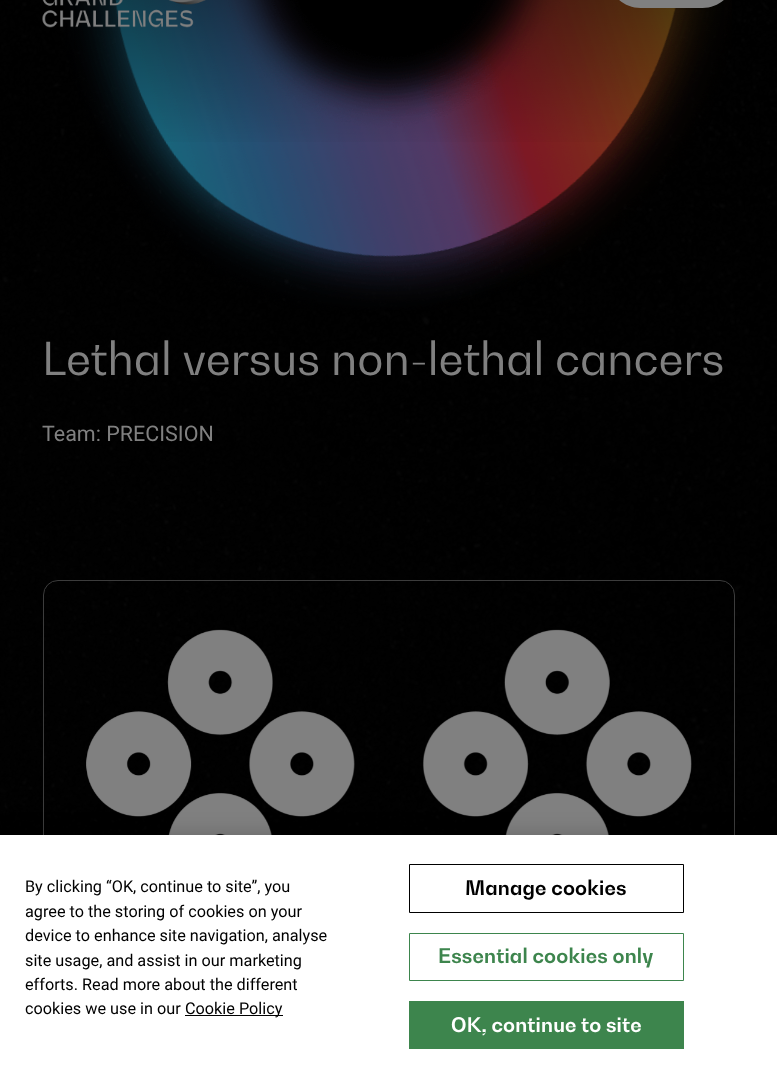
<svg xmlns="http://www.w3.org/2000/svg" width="777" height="1077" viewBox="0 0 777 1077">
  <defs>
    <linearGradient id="g1" gradientUnits="userSpaceOnUse" x1="389" y1="-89" x2="389" y2="151"><stop offset="0" stop-color="#000" stop-opacity="0.6"/><stop offset="1" stop-color="#000" stop-opacity="0"/></linearGradient>
  </defs>
  <rect width="100%" height="100%" fill="#000"/>
  <image x="0" y="0" width="777" height="835" href="img/2.png"/>
  <image x="63" y="0" width="669" height="310" href="img/3.png"/>
  <path d="M74 0h650v142H74z" fill="url(#g1)"/>
  <path d="M640.5-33H673V8H640.5C622.5 8 608-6.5 608-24.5V-.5C608-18.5 622.5-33 640.5-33Z" fill="#808080"/>
  <path d="M673-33H702.5C720.5-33 735-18.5 735-.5V-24.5C735-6.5 720.5 8 702.5 8H673Z" fill="#808080"/>
  <image x="42" y="0" width="164" height="28" href="img/1.png"/>
  <rect x="43.5" y="580.5" width="691" height="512" rx="14.5" fill="none" stroke="#3c3c3c"/>
  <image x="86" y="629" width="606" height="206" href="img/4.png"/>
  <path d="M0 835h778v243H0z" fill="#00000033" filter="blur(11px)"/>
  <path d="M0 835h777v242H0z" fill="#fff"/>
  <path d="M185 1015h98v1H185z" fill="#000"/>
  <path d="M409.5 864.5h274v48H409.5z" fill="none" stroke="#000"/>
  <path d="M409.5 933.5h274v47H409.5z" fill="none" stroke="#3d854d"/>
  <path d="M409 1001h275v48H409z" fill="#3d854d"/>
  <text x="42" y="375" font-family="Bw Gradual" font-size="45.1" fill="#808080">Lethal versus non-lethal cancers</text>
  <text x="42" y="441" font-family="Roboto" font-size="21.5" fill="#808080">Team: PRECISION</text>
  <g font-family="Roboto" font-size="16.25" fill="#000">
    <text x="25" y="892">By clicking “OK, continue to site”, you</text>
    <text x="25" y="917">agree to the storing of cookies on your</text>
    <text x="25" y="941">device to enhance site navigation, analyse</text>
    <text x="25" y="966">site usage, and assist in our marketing</text>
    <text x="25" y="990">efforts. Read more about the different</text>
    <text x="25" y="1014">cookies we use in our</text>
    <text x="185" y="1014">Cookie Policy</text>
  </g>
  <text x="465" y="895" font-family="Bw Gradual" font-size="20" font-weight="bold" letter-spacing="0.2" fill="#000">Manage cookies</text>
  <text x="438" y="963" font-family="Bw Gradual" font-size="20" font-weight="bold" letter-spacing="0.2" fill="#3d854d">Essential cookies only</text>
  <text x="451" y="1032" font-family="Bw Gradual" font-size="20" font-weight="bold" letter-spacing="0.2" fill="#fff">OK, continue to site</text>
</svg>
